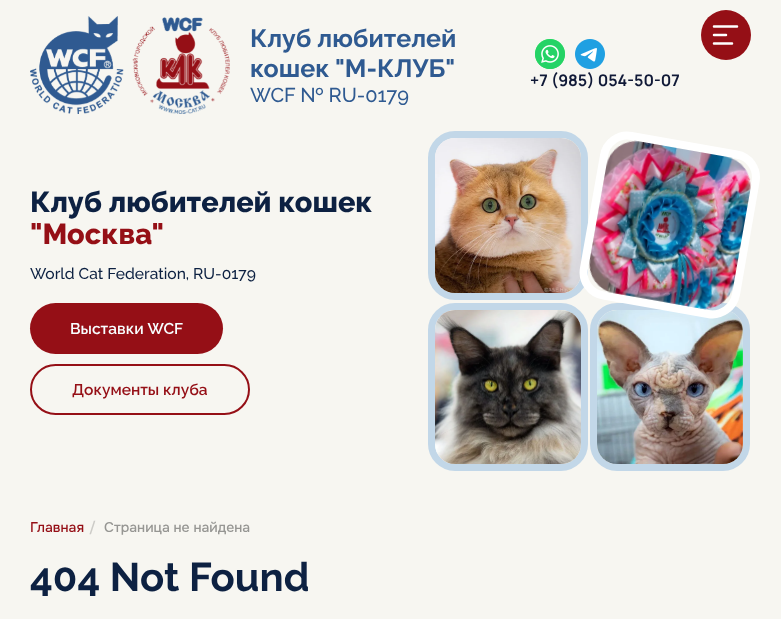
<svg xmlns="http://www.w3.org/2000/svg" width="781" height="619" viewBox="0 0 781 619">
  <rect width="100%" height="100%" fill="#f7f6f1"/>
  <image x="30" y="16" width="200" height="98" href="img/1.png"/>
  <image x="535" y="39" width="30" height="30" href="img/2.png"/>
  <image x="575" y="39" width="30" height="30" href="img/3.png"/>
  <circle cx="726" cy="35" r="25" fill="#950f16"/>
  <path d="M714 43.5H732M714 35H726M714 26.5H737" fill="none" stroke="#fff" stroke-width="2.5" stroke-linecap="round"/>
  <rect x="30" y="303" width="193" height="51" rx="25.5" fill="#950f16"/>
  <rect x="31" y="365" width="218" height="49" rx="24.5" fill="none" stroke="#950f16" stroke-width="2"/>
  <rect x="431.5" y="134.5" width="153" height="162" rx="23.5" fill="none" stroke="#c2d7e8" stroke-width="7"/>
  <image x="435" y="138" width="146" height="155" href="img/4.png"/>
  <rect x="431.5" y="306.5" width="153" height="161" rx="23.5" fill="none" stroke="#c2d7e8" stroke-width="7"/>
  <image x="435" y="310" width="146" height="154" href="img/5.png"/>
  <rect x="593.5" y="306.5" width="153" height="161" rx="23.5" fill="none" stroke="#c2d7e8" stroke-width="7"/>
  <image x="597" y="310" width="146" height="154" href="img/7.png"/>
  <path d="M631.5 136L736.5 154.5C749.5 156.5 758 169 755.5 182L736 294.5C733.5 307.5 721 316.5 708 314L603.5 295.5C590.5 293.5 581.5 281 584 268L604 155.5C606 142.5 618.5 133.5 631.5 136Z" fill="none" stroke="#fff" stroke-width="8"/>
  <image x="588" y="140" width="164" height="170" href="img/6.png"/>
  <g font-family="Raleway" font-size="25" font-weight="100" fill="#2f5a91">
    <text x="250" y="47">Клуб любителей</text>
    <text x="250" y="77">кошек "М-КЛУБ"</text>
  </g>
  <text x="250" y="102" font-family="'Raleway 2'" font-size="20" font-weight="100" fill="#2f5a91">WCF № RU-0179</text>
  <text x="530" y="86" font-family="Manrope" font-size="16" font-weight="200" fill="#101937">+7 (985) 054-50-07</text>
  <text x="30" y="212" font-family="'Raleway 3'" font-size="28.9" font-weight="100" fill="#0d2142">Клуб любителей кошек</text>
  <text x="30" y="244" font-family="'Raleway 3'" font-size="28.9" font-weight="100" fill="#950f16">"Москва"</text>
  <text x="30" y="279" font-family="'Raleway 2'" font-size="15.6" font-weight="100" fill="#0d2142">World Cat Federation, RU-0179</text>
  <text x="70" y="334" font-family="'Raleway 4'" font-size="15.6" font-weight="100" fill="#f8feff">Выставки WCF</text>
  <text x="72" y="395" font-family="'Raleway 4'" font-size="15.6" font-weight="100" fill="#950f16">Документы клуба</text>
  <text x="30" y="532" font-family="Onest" font-size="14" font-weight="500" fill="#950f16">Главная</text>
  <text x="89" y="532" font-family="Onest" font-size="14" font-weight="500" fill="#cccbc7">/</text>
  <text x="104" y="532" font-family="Onest" font-size="14" font-weight="500" fill="#969693">Страница не найдена</text>
  <text x="30" y="591" font-family="Raleway" font-size="40" font-weight="100" fill="#0d2142">404 Not Found</text>
</svg>
